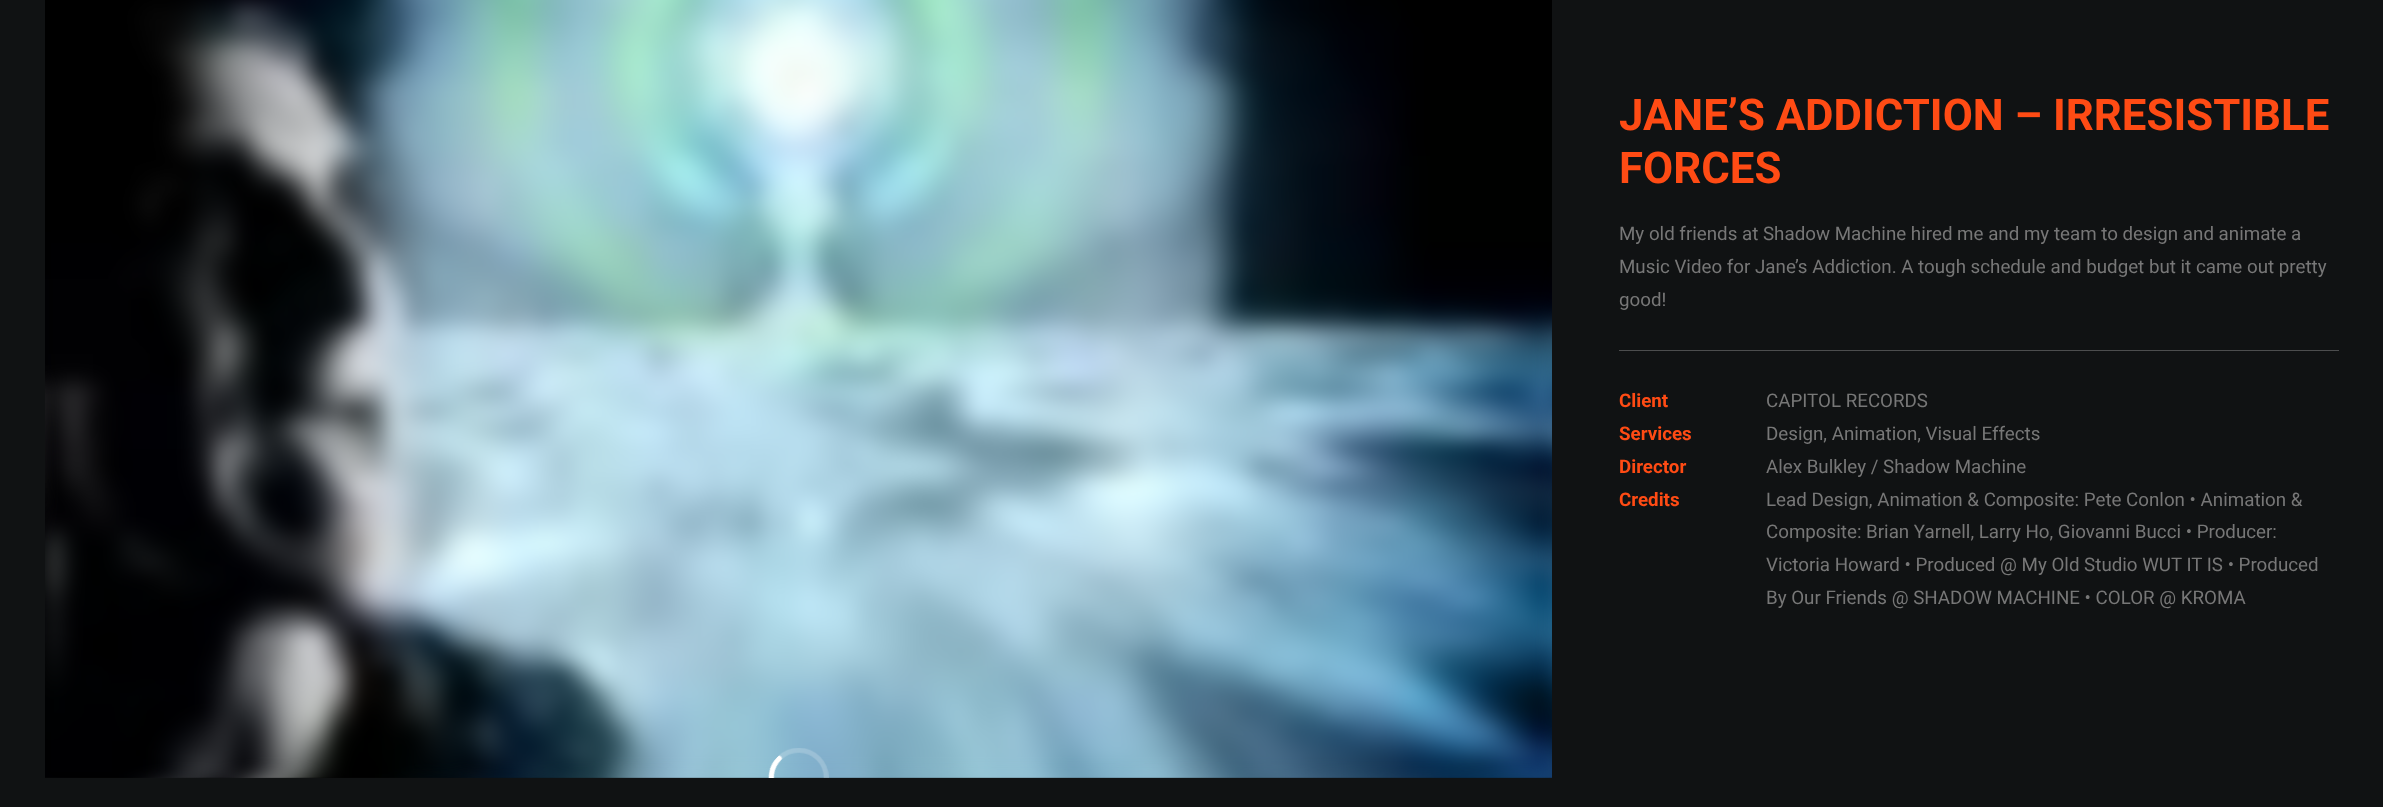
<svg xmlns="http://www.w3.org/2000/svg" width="2383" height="807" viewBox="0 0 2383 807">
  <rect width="100%" height="100%" fill="#101213"/>
  <image x="45" y="0" width="1507" height="778" href="img/1.png"/>
  <path d="M1619 350h720v1H1619z" fill="#4c4d4e"/>
  <g font-family="Roboto" font-size="43.75" font-weight="bold" fill="#ff4b14">
    <text x="1619" y="130">JANE’S ADDICTION – IRRESISTIBLE</text>
    <text x="1619" y="183">FORCES</text>
  </g>
  <g font-family="Roboto" font-size="18.75" fill="#777">
    <text x="1619" y="240">My old friends at Shadow Machine hired me and my team to design and animate a</text>
    <text x="1619" y="273">Music Video for Jane’s Addiction. A tough schedule and budget but it came out pretty</text>
    <text x="1619" y="306">good!</text>
  </g>
  <text x="1619" y="407" font-family="Roboto" font-size="18.75" font-weight="bold" fill="#ff4b14">Client</text>
  <text x="1766" y="407" font-family="Roboto" font-size="18.75" fill="#777">CAPITOL RECORDS</text>
  <text x="1619" y="440" font-family="Roboto" font-size="18.75" font-weight="bold" fill="#ff4b14">Services</text>
  <text x="1766" y="440" font-family="Roboto" font-size="18.75" fill="#777">Design, Animation, Visual Effects</text>
  <text x="1619" y="473" font-family="Roboto" font-size="18.75" font-weight="bold" fill="#ff4b14">Director</text>
  <text x="1766" y="473" font-family="Roboto" font-size="18.75" fill="#777">Alex Bulkley / Shadow Machine</text>
  <text x="1619" y="506" font-family="Roboto" font-size="18.75" font-weight="bold" fill="#ff4b14">Credits</text>
  <g font-family="Roboto" font-size="18.75" fill="#777">
    <text x="1766" y="506">Lead Design, Animation &amp; Composite: Pete Conlon • Animation &amp;</text>
    <text x="1766" y="538">Composite: Brian Yarnell, Larry Ho, Giovanni Bucci • Producer:</text>
    <text x="1766" y="571">Victoria Howard • Produced @ My Old Studio WUT IT IS • Produced</text>
    <text x="1766" y="604">By Our Friends @ SHADOW MACHINE • COLOR @ KROMA</text>
  </g>
</svg>
